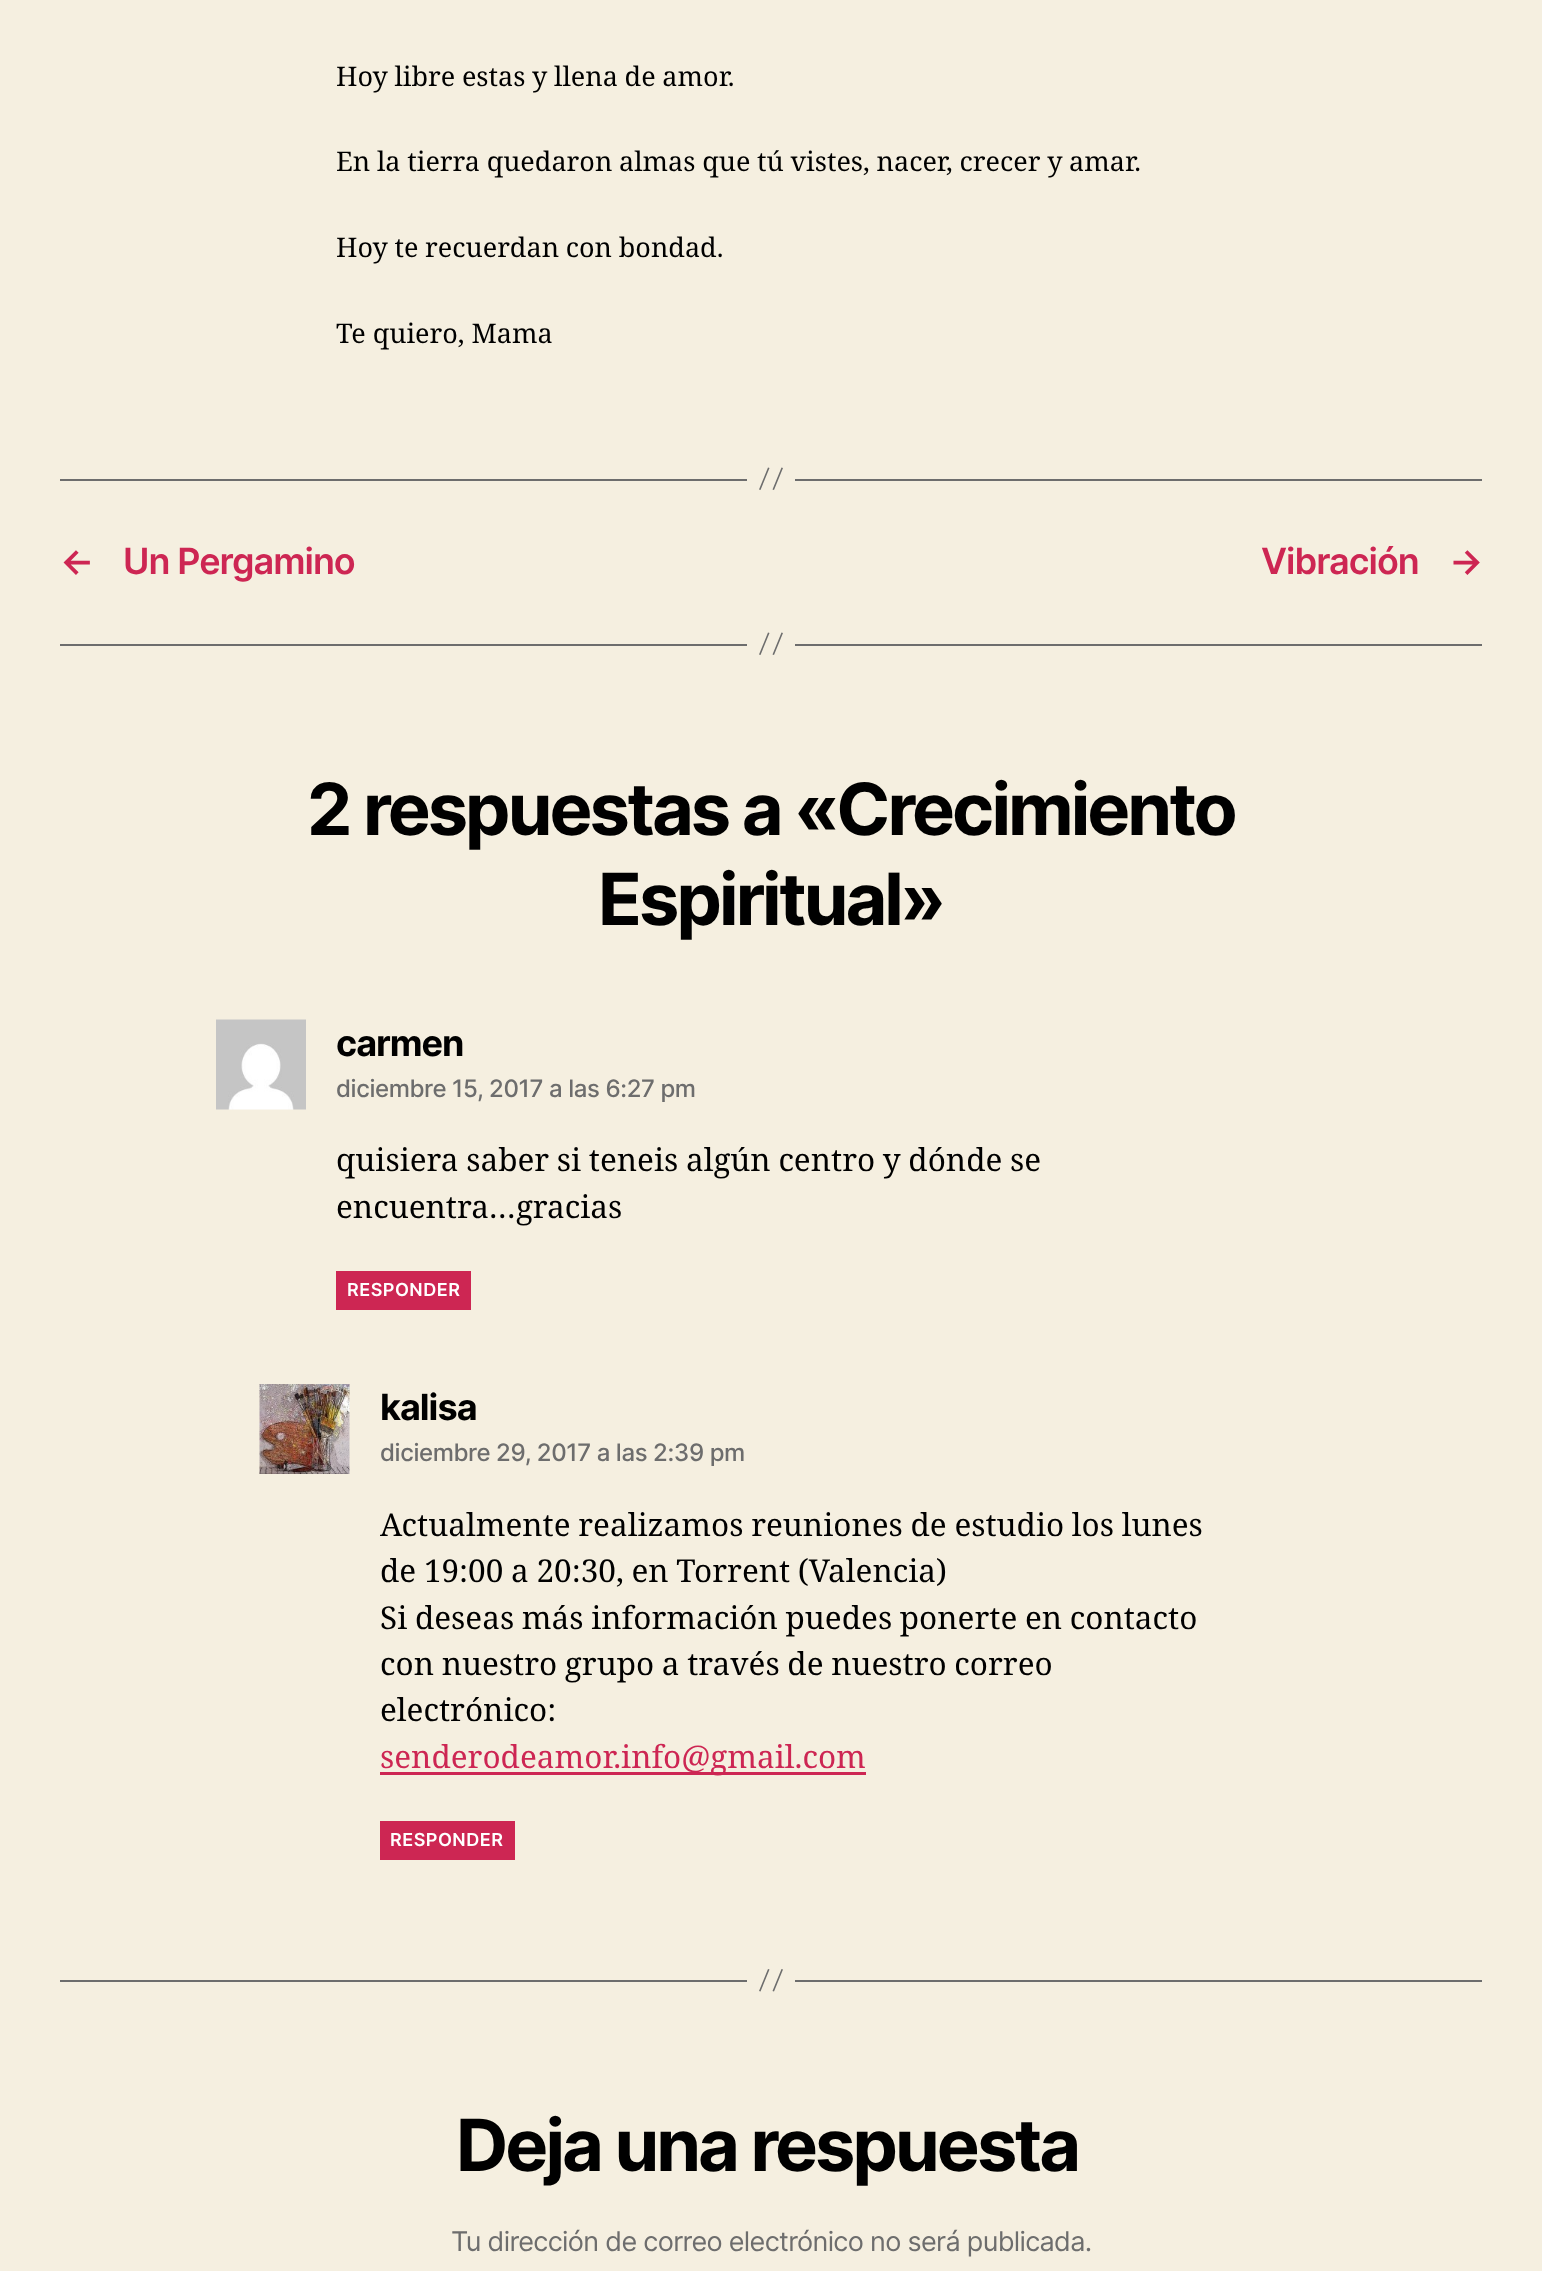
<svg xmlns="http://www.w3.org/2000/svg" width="1542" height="2271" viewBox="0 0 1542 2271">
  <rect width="100%" height="100%" fill="#f5efe0"/>
  <path d="M795 479h687v2H795z" fill="#6d6d6d"/>
  <path d="M60 479h687v2H60z" fill="#6d6d6d"/>
  <path d="M768 467.5L769.5 468L760.5 490L759 489.5ZM781.5 467.5L783 468L774 490L772.5 489.5Z" fill="#6d6d6d"/>
  <path d="M795 644h687v2H795z" fill="#6d6d6d"/>
  <path d="M60 644h687v2H60z" fill="#6d6d6d"/>
  <path d="M768 632.5L769.5 633L760.5 655L759 654.5ZM781.5 632.5L783 633L774 655L772.5 654.5Z" fill="#6d6d6d"/>
  <image x="216" y="1019" width="90" height="91" href="img/1.png"/>
  <path d="M336 1271h135v39H336z" fill="#cd2653"/>
  <image x="259" y="1384" width="91" height="90" href="img/2.png"/>
  <path d="M380 1772h486v3H380z" fill="#cd2653"/>
  <path d="M380 1821h135v39H380z" fill="#cd2653"/>
  <path d="M795 1980h687v2H795z" fill="#6d6d6d"/>
  <path d="M60 1980h687v2H60z" fill="#6d6d6d"/>
  <path d="M768 1969L769.5 1969.5L760.5 1991.5L759 1991ZM781.5 1969L783 1969.5L774 1991.5L772.5 1991Z" fill="#6d6d6d"/>
  <g font-family="Noto Serif" font-size="27" fill="#000">
    <text x="336" y="86" word-spacing="-0.3">Hoy libre estas y llena de amor.</text>
    <text x="336" y="171" word-spacing="-0.3">En la tierra quedaron almas que tú vistes, nacer, crecer y amar.</text>
    <text x="336" y="257" word-spacing="-0.3">Hoy te recuerdan con bondad.</text>
    <text x="336" y="343">Te quiero, Mama</text>
  </g>
  <g font-family="Inter" font-size="36" font-weight="600" letter-spacing="-1" fill="#cd2653">
    <text x="60" y="574">←</text>
    <text x="123" y="574">Un Pergamino</text>
    <text x="1261" y="574">Vibración</text>
    <text x="1449" y="574">→</text>
  </g>
  <g font-family="Inter" font-size="72" font-weight="bold" letter-spacing="-3" fill="#000">
    <text x="307" y="835">2 respuestas a «Crecimiento</text>
    <text x="598" y="925">Espiritual»</text>
  </g>
  <text x="336" y="1056" font-family="Inter" font-size="36" font-weight="bold" letter-spacing="-1" fill="#000">carmen</text>
  <text x="336" y="1097" font-family="Inter" font-size="24" font-weight="500" letter-spacing="-0.4" fill="#6d6d6d">diciembre 15, 2017 a las 6:27 pm</text>
  <g font-family="Noto Serif" font-size="31.5" fill="#000">
    <text x="336" y="1171" word-spacing="-0.5">quisiera saber si teneis algún centro y dónde se</text>
    <text x="336" y="1218">encuentra…gracias</text>
  </g>
  <text x="347" y="1296" font-family="Inter" font-size="18" font-weight="600" letter-spacing="0.5" fill="#fff">RESPONDER</text>
  <text x="380" y="1420" font-family="Inter" font-size="36" font-weight="bold" letter-spacing="-1" fill="#000">kalisa</text>
  <text x="380" y="1461" font-family="Inter" font-size="24" font-weight="500" letter-spacing="-0.4" fill="#6d6d6d">diciembre 29, 2017 a las 2:39 pm</text>
  <g font-family="Noto Serif" font-size="31.5" fill="#000">
    <text x="380" y="1536" word-spacing="-0.5">Actualmente realizamos reuniones de estudio los lunes</text>
    <text x="380" y="1582" word-spacing="-0.5">de 19:00 a 20:30, en Torrent (Valencia)</text>
    <text x="380" y="1629" word-spacing="-0.5">Si deseas más información puedes ponerte en contacto</text>
    <text x="380" y="1675" word-spacing="-0.5">con nuestro grupo a través de nuestro correo</text>
    <text x="380" y="1721">electrónico:</text>
  </g>
  <text x="380" y="1768" font-family="Noto Serif" font-size="31.5" fill="#cd2653">senderodeamor.info@gmail.com</text>
  <text x="390" y="1846" font-family="Inter" font-size="18" font-weight="600" letter-spacing="0.5" fill="#fff">RESPONDER</text>
  <text x="456" y="2171" font-family="Inter" font-size="72" font-weight="bold" letter-spacing="-3" fill="#000">Deja una respuesta</text>
  <text x="451" y="2251" font-family="Inter" font-size="27" letter-spacing="-0.68" fill="#6d6d6d">Tu dirección de correo electrónico no será publicada.</text>
</svg>
